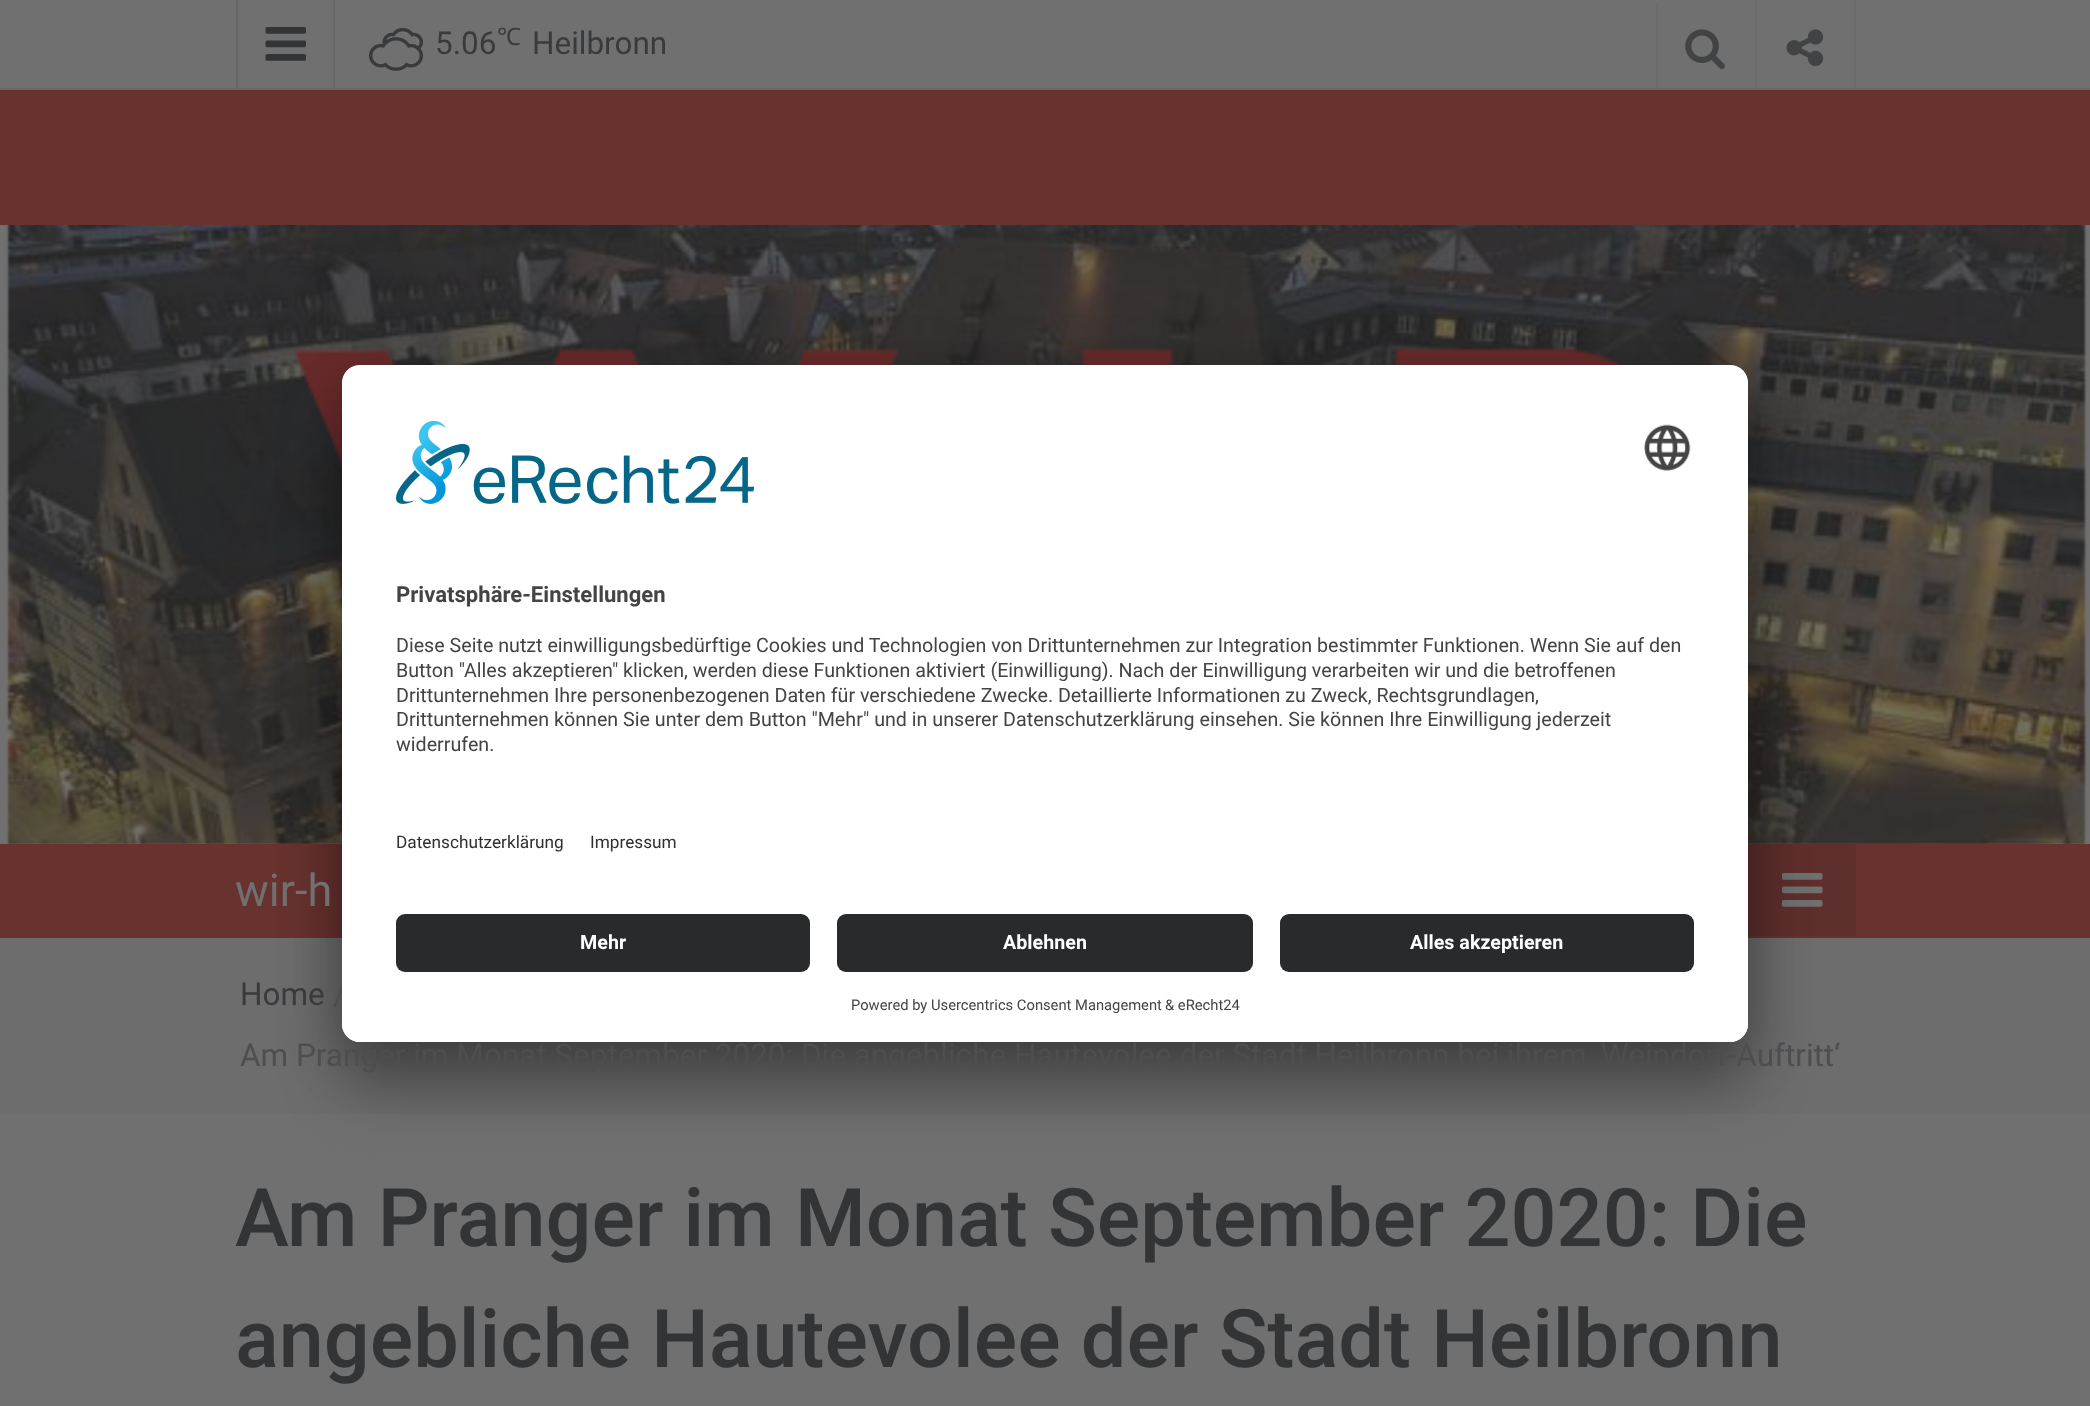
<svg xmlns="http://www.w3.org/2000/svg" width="2090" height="1406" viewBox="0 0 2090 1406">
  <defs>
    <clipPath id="clip1"><rect x="342" y="365" width="1406" height="677" rx="18"/></clipPath>
    <clipPath id="clip2"><path d="M360 365H1730C1740 365 1748 373 1748 383V896H342V383C342 373 350 365 360 365Z"/></clipPath>
  </defs>
  <rect width="100%" height="100%" fill="#707070"/>
  <path d="M0 88h2090v2H0z" fill="#686868"/>
  <path d="M333 0h2v90H333z" fill="#686868"/>
  <path d="M236 0h2v90H236z" fill="#686868"/>
  <image x="265" y="27" width="41" height="34" href="img/1.png"/>
  <image x="369" y="27" width="54" height="44" href="img/2.png"/>
  <path d="M1656 2h2v86H1656z" fill="#6b6b6b"/>
  <image x="1685" y="29" width="40" height="41" href="img/3.png"/>
  <path d="M1854 0h2v88H1854z" fill="#6b6b6b"/>
  <path d="M1755 0h2v88H1755z" fill="#6b6b6b"/>
  <image x="1786" y="29" width="38" height="38" href="img/4.png"/>
  <path d="M0 90h2090v135H0z" fill="#68322f"/>
  <image x="6" y="225" width="2081" height="619" href="img/5.png"/>
  <path d="M0 844h2090v94H0z" fill="#68322f"/>
  <path d="M1748 844h108v92H1748z" fill="#5e2f2d"/>
  <image x="1782" y="873" width="41" height="34" href="img/6.png"/>
  <path d="M0 938h2090v176H0z" fill="#6d6d6e"/>
  <rect x="342" y="410" width="1406" height="677" rx="18" fill="#0000004d" filter="blur(31.5px)"/>
  <rect x="342" y="376" width="1406" height="677" rx="18" fill="#00000038" filter="blur(29px)"/>
  <text x="435" y="54" font-family="Roboto" font-size="31.5" fill="#383a3c">5.06</text>
  <text x="497" y="45" font-family="Noto Sans" font-size="24" fill="#383a3c">℃</text>
  <text x="532" y="54" font-family="Roboto" font-size="31.5" fill="#383a3c">Heilbronn</text>
  <text x="235" y="906" font-family="Roboto" font-size="45" fill="#707070">wir-h</text>
  <text x="240" y="1005" font-family="Roboto" font-size="31.5" fill="#383a3c">Home</text>
  <g font-family="Roboto" font-size="31.5" fill="#4d4e50">
    <text x="333" y="1005">/</text>
    <text x="240" y="1066">Am Pranger im Monat September 2020: Die angebliche Hautevolee der Stadt Heilbronn bei ihrem ‚Weindorf-Auftritt‘</text>
  </g>
  <g font-family="Roboto" font-size="81" font-weight="500" fill="#323436">
    <text x="235" y="1246">Am Pranger im Monat September 2020: Die</text>
    <text x="235" y="1367">angebliche Hautevolee der Stadt Heilbronn</text>
  </g>
  <rect x="342" y="365" width="1406" height="677" rx="18" fill="#fff"/>
  <g clip-path="url(#clip1)">
    <g clip-path="url(#clip2)">
      <path d="M342 367h1406v529H342z" fill="#fff"/>
    </g>
  </g>
  <image x="396" y="421" width="359" height="83" href="img/7.png"/>
  <image x="1644" y="424" width="47" height="47" href="img/8.png"/>
  <text x="396" y="602" font-family="Roboto" font-size="22.1" font-weight="bold" fill="#444">Privatsphäre-Einstellungen</text>
  <g font-family="Roboto" font-size="19.7" fill="#444">
    <text x="396" y="652">Diese Seite nutzt einwilligungsbedürftige Cookies und Technologien von Drittunternehmen zur Integration bestimmter Funktionen. Wenn Sie auf den</text>
    <text x="396" y="677">Button "Alles akzeptieren" klicken, werden diese Funktionen aktiviert (Einwilligung). Nach der Einwilligung verarbeiten wir und die betroffenen</text>
    <text x="396" y="702">Drittunternehmen Ihre personenbezogenen Daten für verschiedene Zwecke. Detaillierte Informationen zu Zweck, Rechtsgrundlagen,</text>
    <text x="396" y="726">Drittunternehmen können Sie unter dem Button "Mehr" und in unserer Datenschutzerklärung einsehen. Sie können Ihre Einwilligung jederzeit</text>
    <text x="396" y="751">widerrufen.</text>
  </g>
  <g font-family="Roboto" font-size="17.25" fill="#303030">
    <text x="396" y="848">Datenschutzerklärung</text>
    <text x="590" y="848">Impressum</text>
  </g>
  <path d="M342 896H1748V1024C1748 1034 1740 1042 1730 1042H360C350 1042 342 1034 342 1024Z" fill="#fff"/>
  <rect x="396" y="914" width="414" height="58" rx="9" fill="#292a2b"/>
  <text x="580" y="949" font-family="Roboto" font-size="19.7" font-weight="bold" fill="#fff">Mehr</text>
  <rect x="837" y="914" width="416" height="58" rx="9" fill="#292a2b"/>
  <text x="1003" y="949" font-family="Roboto" font-size="19.7" font-weight="bold" fill="#fff">Ablehnen</text>
  <rect x="1280" y="914" width="414" height="58" rx="9" fill="#292a2b"/>
  <text x="1410" y="949" font-family="Roboto" font-size="19.7" font-weight="bold" fill="#fff">Alles akzeptieren</text>
  <g font-family="Roboto" font-size="14.75" fill="#444">
    <text x="851" y="1010">Powered by Usercentrics Consent Management</text>
    <text x="1165" y="1010">&amp; eRecht24</text>
  </g>
</svg>
